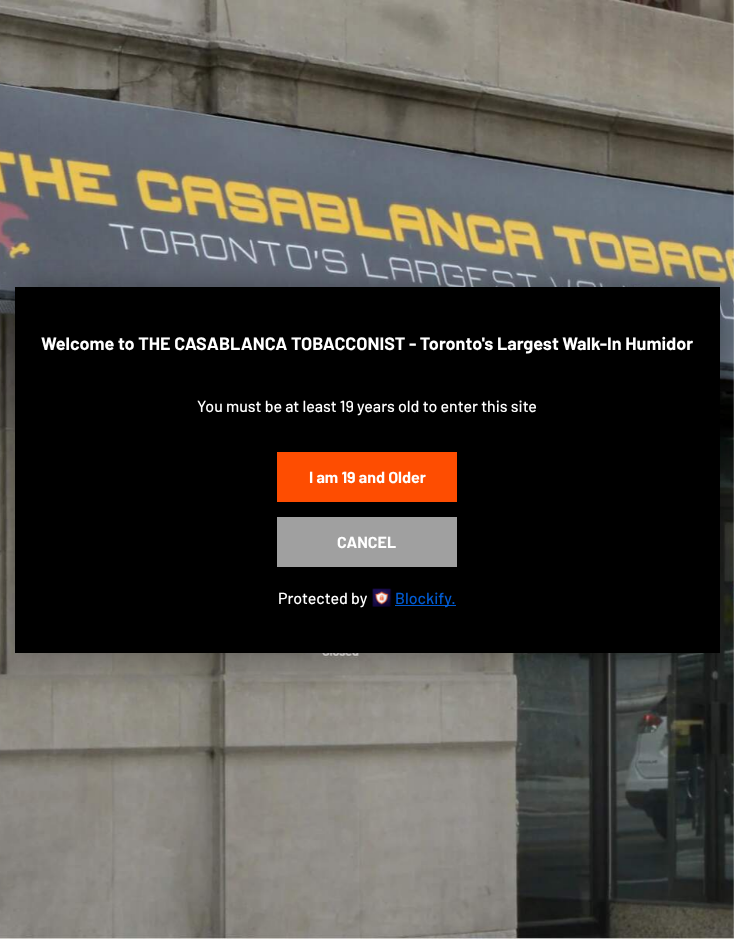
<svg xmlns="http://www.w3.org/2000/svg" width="734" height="939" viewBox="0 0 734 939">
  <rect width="100%" height="100%" fill="#fff"/>
  <image x="0" y="0" width="734" height="939" href="img/1.png"/>
  <path d="M15 287h705v366H15z" fill="#00000059" filter="blur(15px)"/>
  <path d="M15 287h705v366H15z" fill="#000"/>
  <path d="M277 452h180v50H277z" fill="#fe4d01"/>
  <path d="M277 517h180v50H277z" fill="#a0a0a0"/>
  <image x="372" y="588" width="20" height="19" href="img/2.png"/>
  <path d="M395 605h61v1H395z" fill="#005bd3"/>
  <text x="41" y="350" font-family="Barlow" font-size="18" font-weight="bold" fill="#fff">Welcome to THE CASABLANCA TOBACCONIST - Toronto's Largest Walk-In Humidor</text>
  <text x="197" y="412" font-family="Barlow" font-size="16" font-weight="500" fill="#fff">You must be at least 19 years old to enter this site</text>
  <g font-family="Barlow" font-size="16" font-weight="bold" fill="#fff">
    <text x="309" y="483">I am 19 and Older</text>
    <text x="337" y="548">CANCEL</text>
  </g>
  <text x="278" y="604" font-family="Barlow" font-size="16" font-weight="500" fill="#fff">Protected by</text>
  <text x="395" y="604" font-family="Barlow" font-size="16" font-weight="500" fill="#005bd3">Blockify.</text>
</svg>
